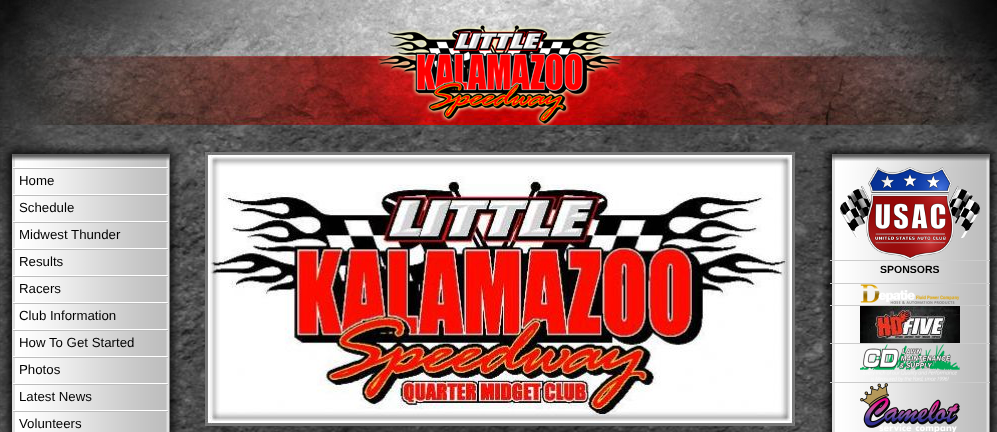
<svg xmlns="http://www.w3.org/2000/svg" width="997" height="432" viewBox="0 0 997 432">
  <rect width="100%" height="100%" fill="#fff"/>
  <image x="0" y="0" width="997" height="432" href="img/1.png"/>
  <image x="9" y="0" width="977" height="125" href="img/2.png"/>
  <image x="377" y="25" width="245" height="101" href="img/3.png"/>
  <image x="3" y="145" width="176" height="22" href="img/4.png"/>
  <image x="2" y="167" width="178" height="265" href="img/5.png"/>
  <image x="13" y="167" width="155" height="2" href="img/6.png"/>
  <image x="13" y="194" width="155" height="2" href="img/6.png"/>
  <image x="13" y="221" width="155" height="2" href="img/6.png"/>
  <image x="13" y="248" width="155" height="2" href="img/6.png"/>
  <image x="13" y="275" width="155" height="2" href="img/6.png"/>
  <image x="13" y="302" width="155" height="2" href="img/6.png"/>
  <image x="13" y="329" width="155" height="2" href="img/6.png"/>
  <image x="13" y="356" width="155" height="2" href="img/6.png"/>
  <image x="13" y="383" width="155" height="2" href="img/6.png"/>
  <image x="13" y="410" width="155" height="2" href="img/6.png"/>
  <image x="205" y="152" width="590" height="274" href="img/7.png"/>
  <image x="822" y="145" width="175" height="22" href="img/8.png"/>
  <image x="822" y="167" width="175" height="265" href="img/9.png"/>
  <path d="M830 260h160v1H830z" fill="#ccc"/>
  <image x="840" y="167" width="140" height="93" href="img/10.png"/>
  <path d="M830 283h160v1H830z" fill="#ccc"/>
  <path d="M830 305h160v1H830z" fill="#ccc"/>
  <image x="860" y="284" width="100" height="20" href="img/11.png"/>
  <path d="M830 343h160v1H830z" fill="#ccc"/>
  <image x="860" y="306" width="100" height="37" href="img/12.png"/>
  <path d="M830 382h160v1H830z" fill="#ccc"/>
  <image x="860" y="344" width="100" height="38" href="img/13.png"/>
  <image x="860" y="383" width="100" height="49" href="img/14.png"/>
  <g font-family="Liberation Sans" font-size="13.25" fill="#000">
    <text x="19" y="185">Home</text>
    <text x="19" y="212">Schedule</text>
    <text x="19" y="239">Midwest Thunder</text>
    <text x="19" y="266">Results</text>
    <text x="19" y="293">Racers</text>
    <text x="19" y="320">Club Information</text>
    <text x="19" y="347">How To Get Started</text>
    <text x="19" y="374">Photos</text>
    <text x="19" y="401">Latest News</text>
    <text x="19" y="428">Volunteers</text>
  </g>
  <text x="880" y="273" font-family="Liberation Sans" font-size="10.5" font-weight="bold" fill="#000">SPONSORS</text>
</svg>
